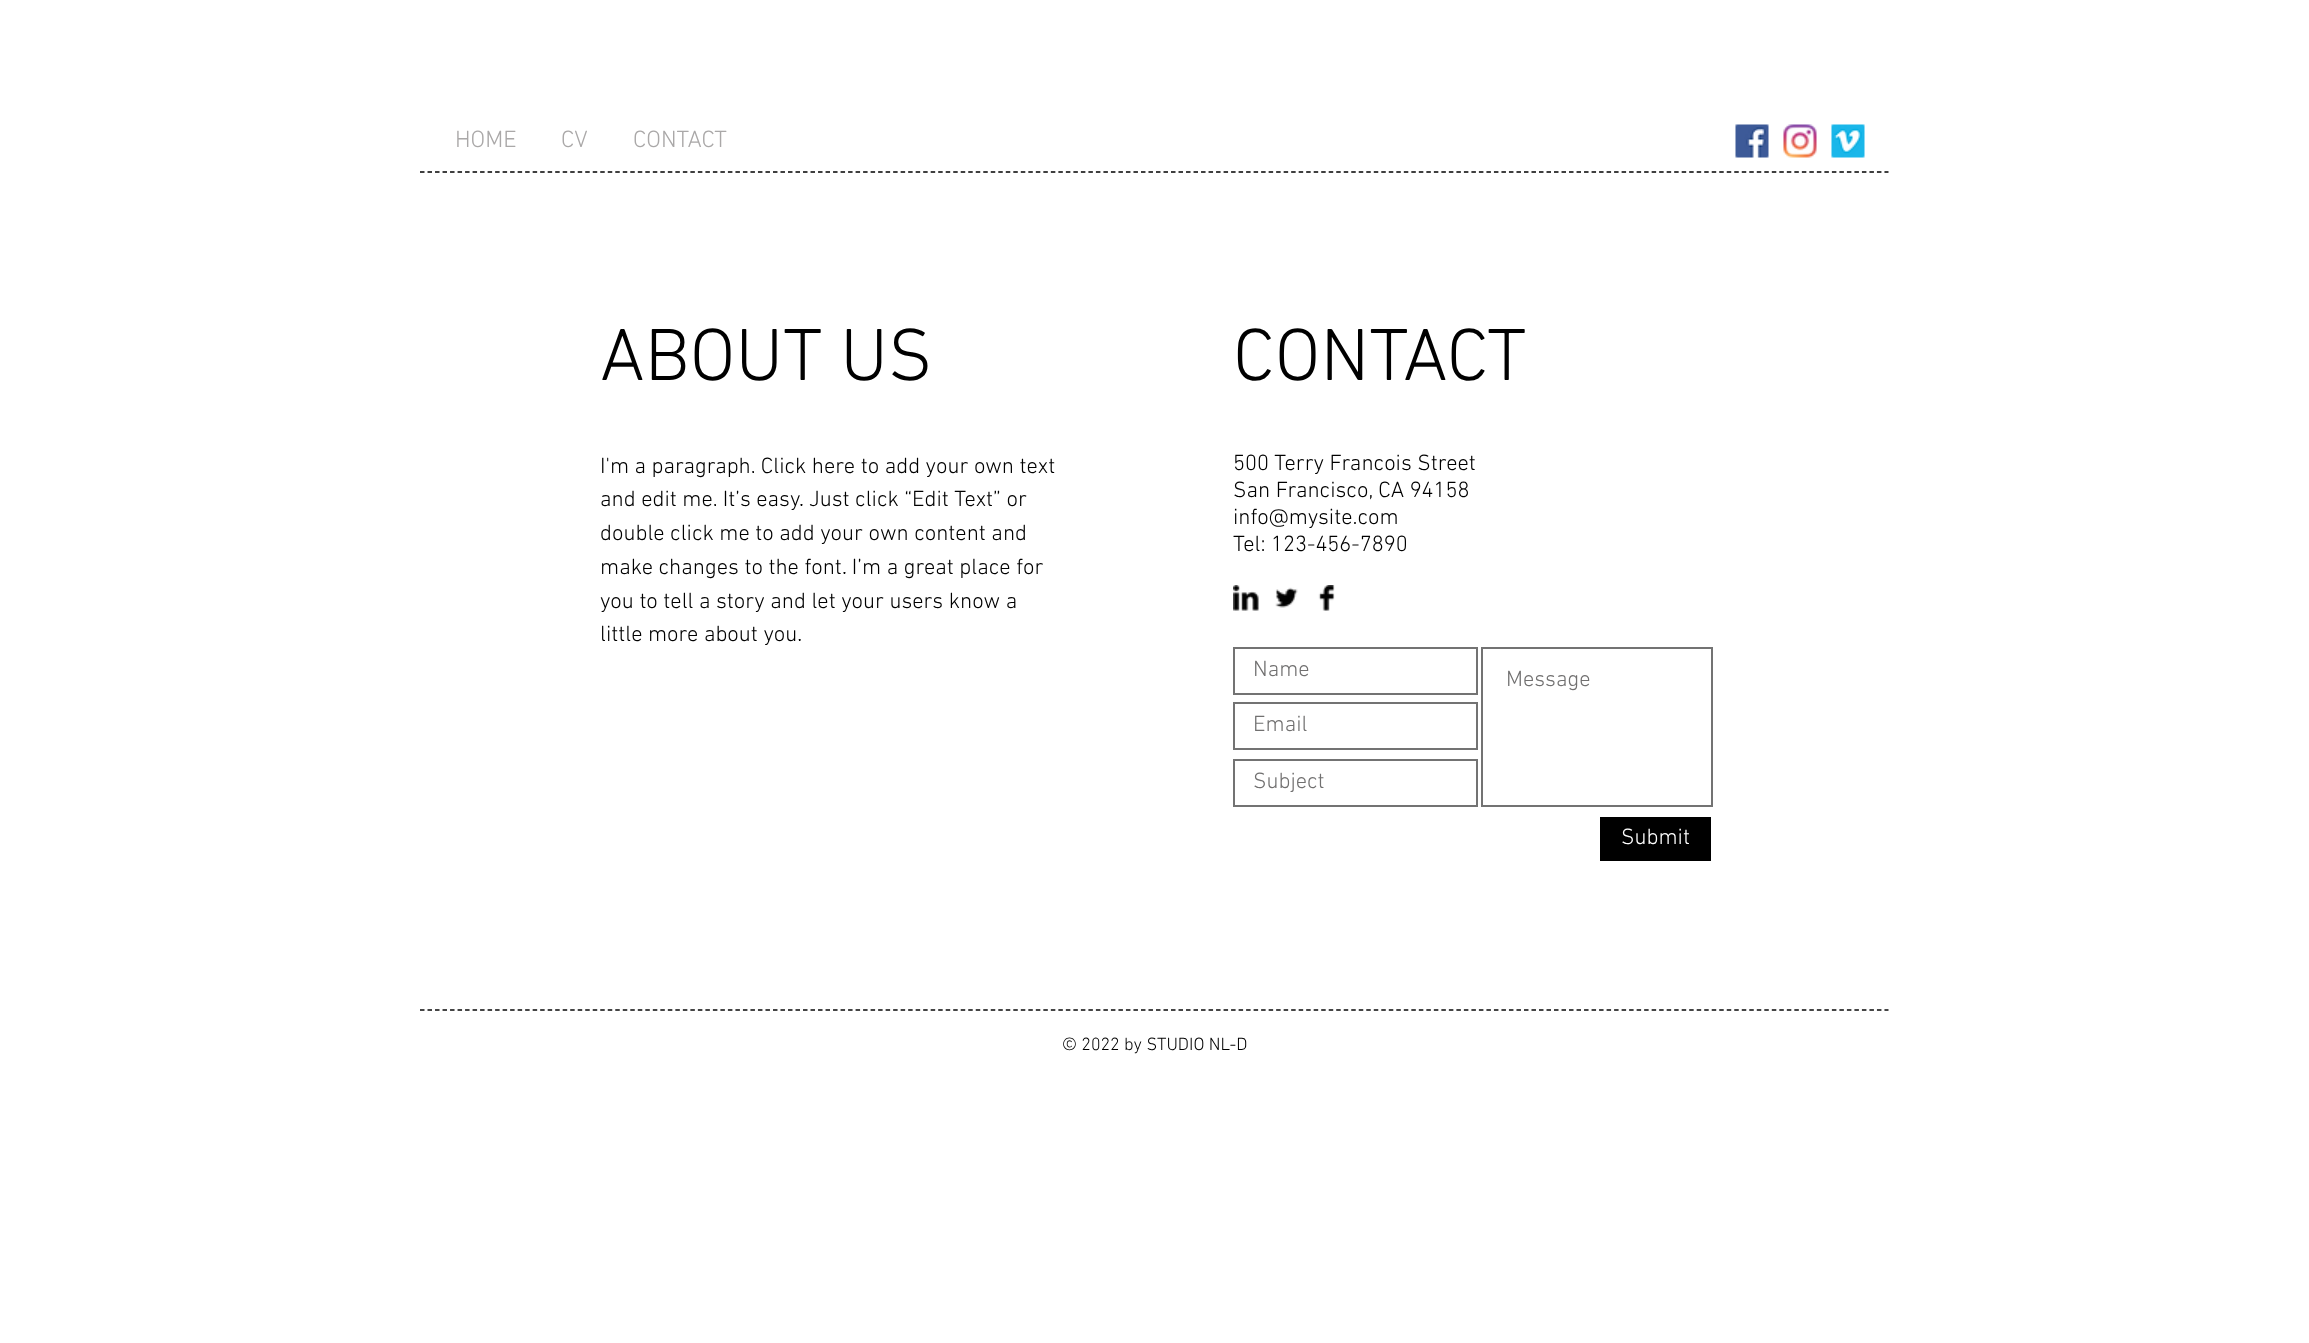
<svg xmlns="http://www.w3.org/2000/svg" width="2309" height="1343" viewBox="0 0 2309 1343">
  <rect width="100%" height="100%" fill="#fff"/>
  <image x="1735" y="124" width="34" height="34" href="img/1.png"/>
  <image x="1783" y="124" width="34" height="34" href="img/2.png"/>
  <image x="1831" y="124" width="34" height="34" href="img/3.png"/>
  <path d="M420 172H1888.5" fill="none" stroke="#000" stroke-width="1.5" stroke-dasharray="4.5 3.01"/>
  <image x="1233" y="585" width="26" height="26" href="img/4.png"/>
  <image x="1275" y="587" width="23" height="21" href="img/5.png"/>
  <image x="1318" y="585" width="17" height="26" href="img/6.png"/>
  <path d="M1234 648h243v46H1234z" fill="none" stroke="#737373" stroke-width="2"/>
  <path d="M1482 648h230v158H1482z" fill="none" stroke="#737373" stroke-width="2"/>
  <path d="M1234 703h243v46H1234z" fill="none" stroke="#737373" stroke-width="2"/>
  <path d="M1234 760h243v46H1234z" fill="none" stroke="#737373" stroke-width="2"/>
  <path d="M1600 817h111v44H1600z" fill="#000"/>
  <path d="M420 1010H1888.5" fill="none" stroke="#080808" stroke-width="1.5" stroke-dasharray="4.5 3.01"/>
  <g font-family="'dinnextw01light'" font-size="24" font-weight="300" fill="#aaa8a8">
    <text x="455" y="147">HOME</text>
    <text x="561" y="147">CV</text>
    <text x="633" y="147">CONTACT</text>
  </g>
  <g font-family="'dinnextw01light'" font-size="75" font-weight="300" fill="#000">
    <text x="600" y="380">ABOUT US</text>
    <text x="1233" y="380">CONTACT</text>
  </g>
  <g font-family="'dinnextw01light'" font-size="22.5" font-weight="300" fill="#000">
    <text x="600" y="473">I'm a paragraph. Click here to add your own text</text>
    <text x="600" y="506">and edit me. It’s easy. Just click “Edit Text” or</text>
    <text x="600" y="540">double click me to add your own content and</text>
    <text x="600" y="574">make changes to the font. I’m a great place for</text>
    <text x="600" y="608">you to tell a story and let your users know a</text>
    <text x="600" y="641">little more about you.</text>
    <text x="1233" y="470">500 Terry Francois Street</text>
    <text x="1233" y="497">San Francisco, CA 94158</text>
    <text x="1233" y="524">info@mysite.com</text>
    <text x="1233" y="551">Tel: 123-456-7890</text>
  </g>
  <g font-family="'dinnextw01light'" font-size="22.5" font-weight="300" fill="#717070">
    <text x="1253" y="676">Name</text>
    <text x="1506" y="686">Message</text>
    <text x="1253" y="731">Email</text>
    <text x="1253" y="788">Subject</text>
  </g>
  <text x="1621" y="844" font-family="'dinnextw01light'" font-size="22.5" font-weight="300" fill="#fff">Submit</text>
  <text x="1062" y="1050" font-family="'dinnextw01light'" font-size="18" font-weight="300" fill="#000">© 2022 by STUDIO NL-D</text>
</svg>
